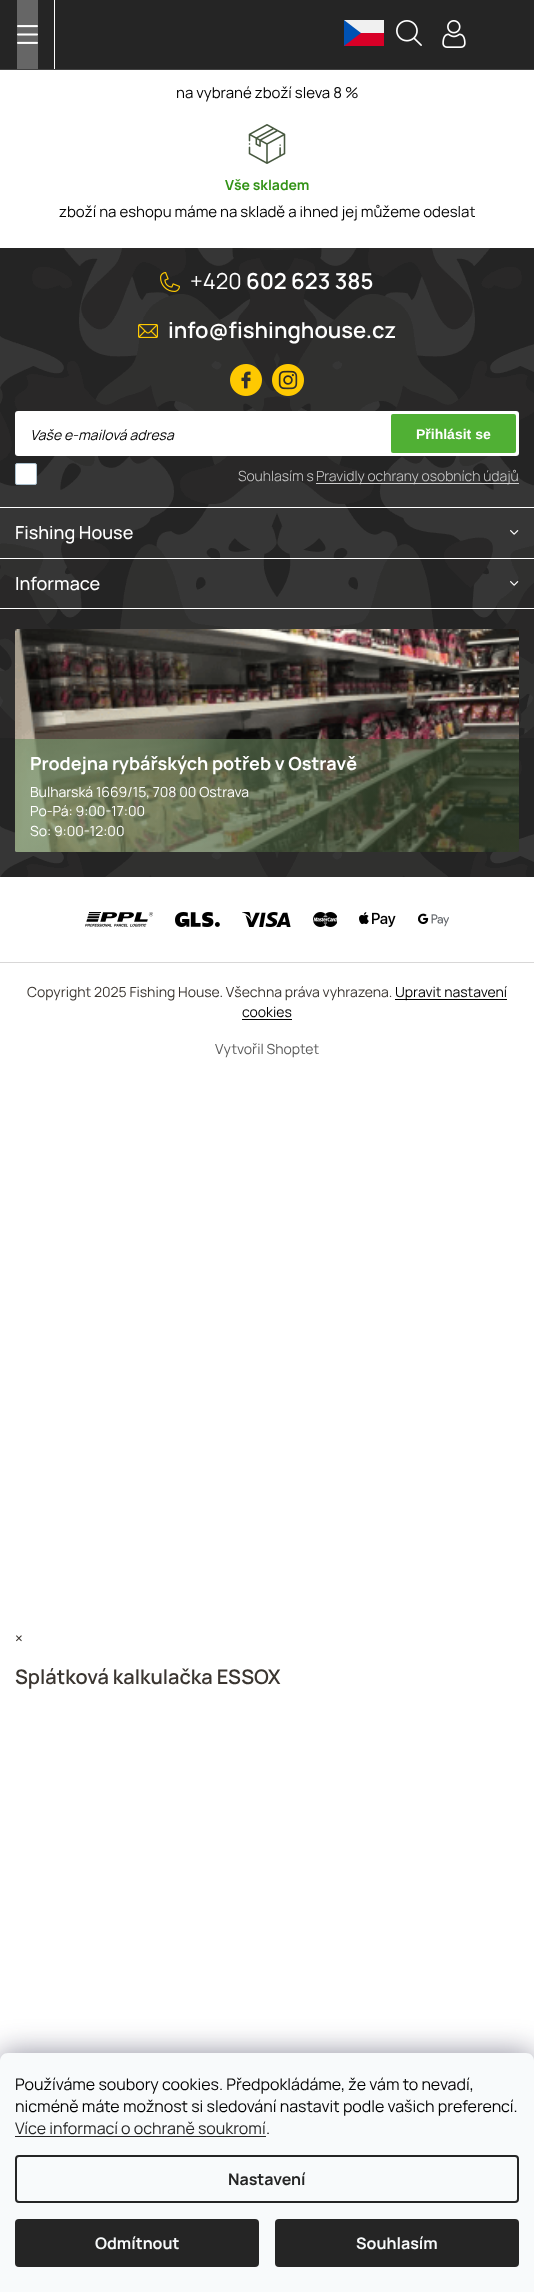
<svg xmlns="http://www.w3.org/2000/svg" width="534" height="2292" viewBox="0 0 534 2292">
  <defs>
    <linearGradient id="g1" gradientUnits="userSpaceOnUse" x1="76" y1="656" x2="458" y2="935"><stop offset="0.13" stop-color="#759169" stop-opacity="0.7"/><stop offset="0.82" stop-color="#2f3f27" stop-opacity="0.7"/></linearGradient>
  </defs>
  <rect width="100%" height="100%" fill="#fff"/>
  <path d="M0 0h534v69H0z" fill="#252525"/>
  <path d="M0 69h534v1H0z" fill="#434343"/>
  <path d="M54 0h1v69H54z" fill="#fff"/>
  <path d="M17 0h21v69H17z" fill="#666"/>
  <image x="17" y="25" width="21" height="19" href="img/1.png"/>
  <image x="396" y="20" width="26" height="26" href="img/2.png"/>
  <image x="442" y="20" width="24" height="28" href="img/3.png"/>
  <path d="M344 20h17v26H344z" fill="#0052b4"/>
  <path d="M384 20V33H361L344 20Z" fill="#f0f0f0"/>
  <path d="M384 33V46H344L361 33Z" fill="#d80027"/>
  <image x="248" y="124" width="38" height="40" href="img/4.png"/>
  <path d="M0 248h534v629H0z" fill="#252525"/>
  <image x="0" y="248" width="534" height="629" href="img/5.png"/>
  <image x="160" y="272" width="20" height="20" href="img/6.png"/>
  <image x="138" y="324" width="20" height="14" href="img/7.png"/>
  <image x="230" y="364" width="32" height="32" href="img/8.png"/>
  <image x="272" y="364" width="32" height="32" href="img/9.png"/>
  <rect x="15" y="411" width="504" height="45" rx="3" fill="#fff"/>
  <rect x="391" y="414" width="125" height="39" rx="2" fill="#50b034"/>
  <rect x="15.5" y="463.5" width="21" height="21" rx="1.5" fill="#fff" stroke="#abc0cd"/>
  <path d="M316 483h203v1H316z" fill="#cfcfcf"/>
  <path d="M0 507h534v1H0z" fill="#fff"/>
  <image x="510" y="530" width="9" height="5" href="img/10.png"/>
  <path d="M0 558h534v1H0z" fill="#fff"/>
  <image x="510" y="581" width="9" height="5" href="img/11.png"/>
  <path d="M0 608h534v1H0z" fill="#fff"/>
  <image x="15" y="629" width="504" height="223" href="img/12.png"/>
  <path d="M15 739H519V850C519 851 518 852 517 852H17C16 852 15 851 15 850Z" fill="url(#g1)"/>
  <image x="85" y="912" width="68" height="15" href="img/13.png"/>
  <image x="175" y="912" width="45" height="15" href="img/14.png"/>
  <image x="242" y="912" width="49" height="15" href="img/15.png"/>
  <image x="313" y="912" width="24" height="15" href="img/16.png"/>
  <image x="359" y="912" width="37" height="15" href="img/17.png"/>
  <image x="418" y="913" width="31" height="14" href="img/18.png"/>
  <path d="M0 962h534v1H0z" fill="#d8d7d7"/>
  <path d="M395 999h112v1H395z" fill="#000"/>
  <path d="M242 1019h50v1H242z" fill="#000"/>
  <rect y="2053" width="534" height="239" rx="8" fill="#1b193980" filter="blur(15px)"/>
  <path d="M8 2053H526C530.5 2053 534 2056.5 534 2061V2292H0V2061C0 2056.5 3.5 2053 8 2053Z" fill="#f8fafb"/>
  <path d="M15 2136h251v1H15z" fill="#252525"/>
  <rect x="16" y="2156" width="502" height="46" rx="3" fill="none" stroke="#252525" stroke-width="2"/>
  <rect x="15" y="2219" width="244" height="48" rx="4" fill="#252525"/>
  <rect x="275" y="2219" width="244" height="48" rx="4" fill="#252525"/>
  <text x="176" y="98" font-family="Manrope" font-size="15" fill="#000">na vybrané zboží sleva 8 %</text>
  <text x="225" y="190" font-family="Manrope" font-size="14" font-weight="bold" fill="#339317">Vše skladem</text>
  <text x="59" y="217" font-family="Manrope" font-size="15" fill="#000">zboží na eshopu máme na skladě a ihned jej můžeme odeslat</text>
  <text x="190" y="289" font-family="Manrope" font-size="22" fill="#fff">+420</text>
  <g font-family="Manrope" font-size="22" font-weight="600" fill="#fff">
    <text x="246" y="289">602 623 385</text>
    <text x="168" y="338">info@fishinghouse.cz</text>
  </g>
  <text x="30" y="440" font-family="Manrope" font-size="14" font-style="italic" fill="#000">Vaše e-mailová adresa</text>
  <text x="416" y="439" font-family="Liberation Sans" font-size="14" font-weight="bold" fill="#fff">Přihlásit se</text>
  <g font-family="Manrope" font-size="14" font-weight="300" fill="#cfcfcf">
    <text x="238" y="481">Souhlasím s</text>
    <text x="316" y="481">Pravidly ochrany osobních údajů</text>
  </g>
  <g font-family="Manrope" font-size="18" font-weight="500" fill="#fff">
    <text x="15" y="539">Fishing House</text>
    <text x="15" y="590">Informace</text>
  </g>
  <text x="30" y="770" font-family="Manrope" font-size="18" font-weight="bold" fill="#fff">Prodejna rybářských potřeb v Ostravě</text>
  <g font-family="Manrope" font-size="14" fill="#fff">
    <text x="30" y="797">Bulharská 1669/15, 708 00 Ostrava</text>
    <text x="30" y="816">Po-Pá: 9:00-17:00</text>
    <text x="30" y="836">So: 9:00-12:00</text>
  </g>
  <text x="27" y="997" font-family="Manrope" font-size="14" fill="#3a3530">Copyright 2025 Fishing House. Všechna práva vyhrazena.</text>
  <g font-family="Manrope" font-size="14" fill="#000">
    <text x="395" y="997">Upravit nastavení</text>
    <text x="242" y="1017">cookies</text>
  </g>
  <text x="215" y="1054" font-family="Manrope" font-size="14" fill="#5a5a5a">Vytvořil Shoptet</text>
  <text x="15" y="1644" font-family="Manrope" font-size="16" fill="#3a3530">×</text>
  <text x="15" y="1684" font-family="Manrope" font-size="20" font-weight="600" fill="#3a3530">Splátková kalkulačka ESSOX</text>
  <g font-family="Manrope" font-size="16" fill="#000">
    <text x="15" y="2090">Používáme soubory cookies. Předpokládáme, že vám to nevadí,</text>
    <text x="15" y="2112">nicméně máte možnost si sledování nastavit podle vašich preferencí.</text>
  </g>
  <text x="15" y="2134" font-family="Manrope" font-size="16" fill="#252525">Více informací o ochraně soukromí</text>
  <text x="266" y="2134" font-family="Manrope" font-size="16" fill="#000">.</text>
  <text x="228" y="2185" font-family="Manrope" font-size="16" font-weight="bold" fill="#252525">Nastavení</text>
  <g font-family="Manrope" font-size="16" font-weight="bold" fill="#f8fafb">
    <text x="95" y="2249">Odmítnout</text>
    <text x="356" y="2249">Souhlasím</text>
  </g>
</svg>
